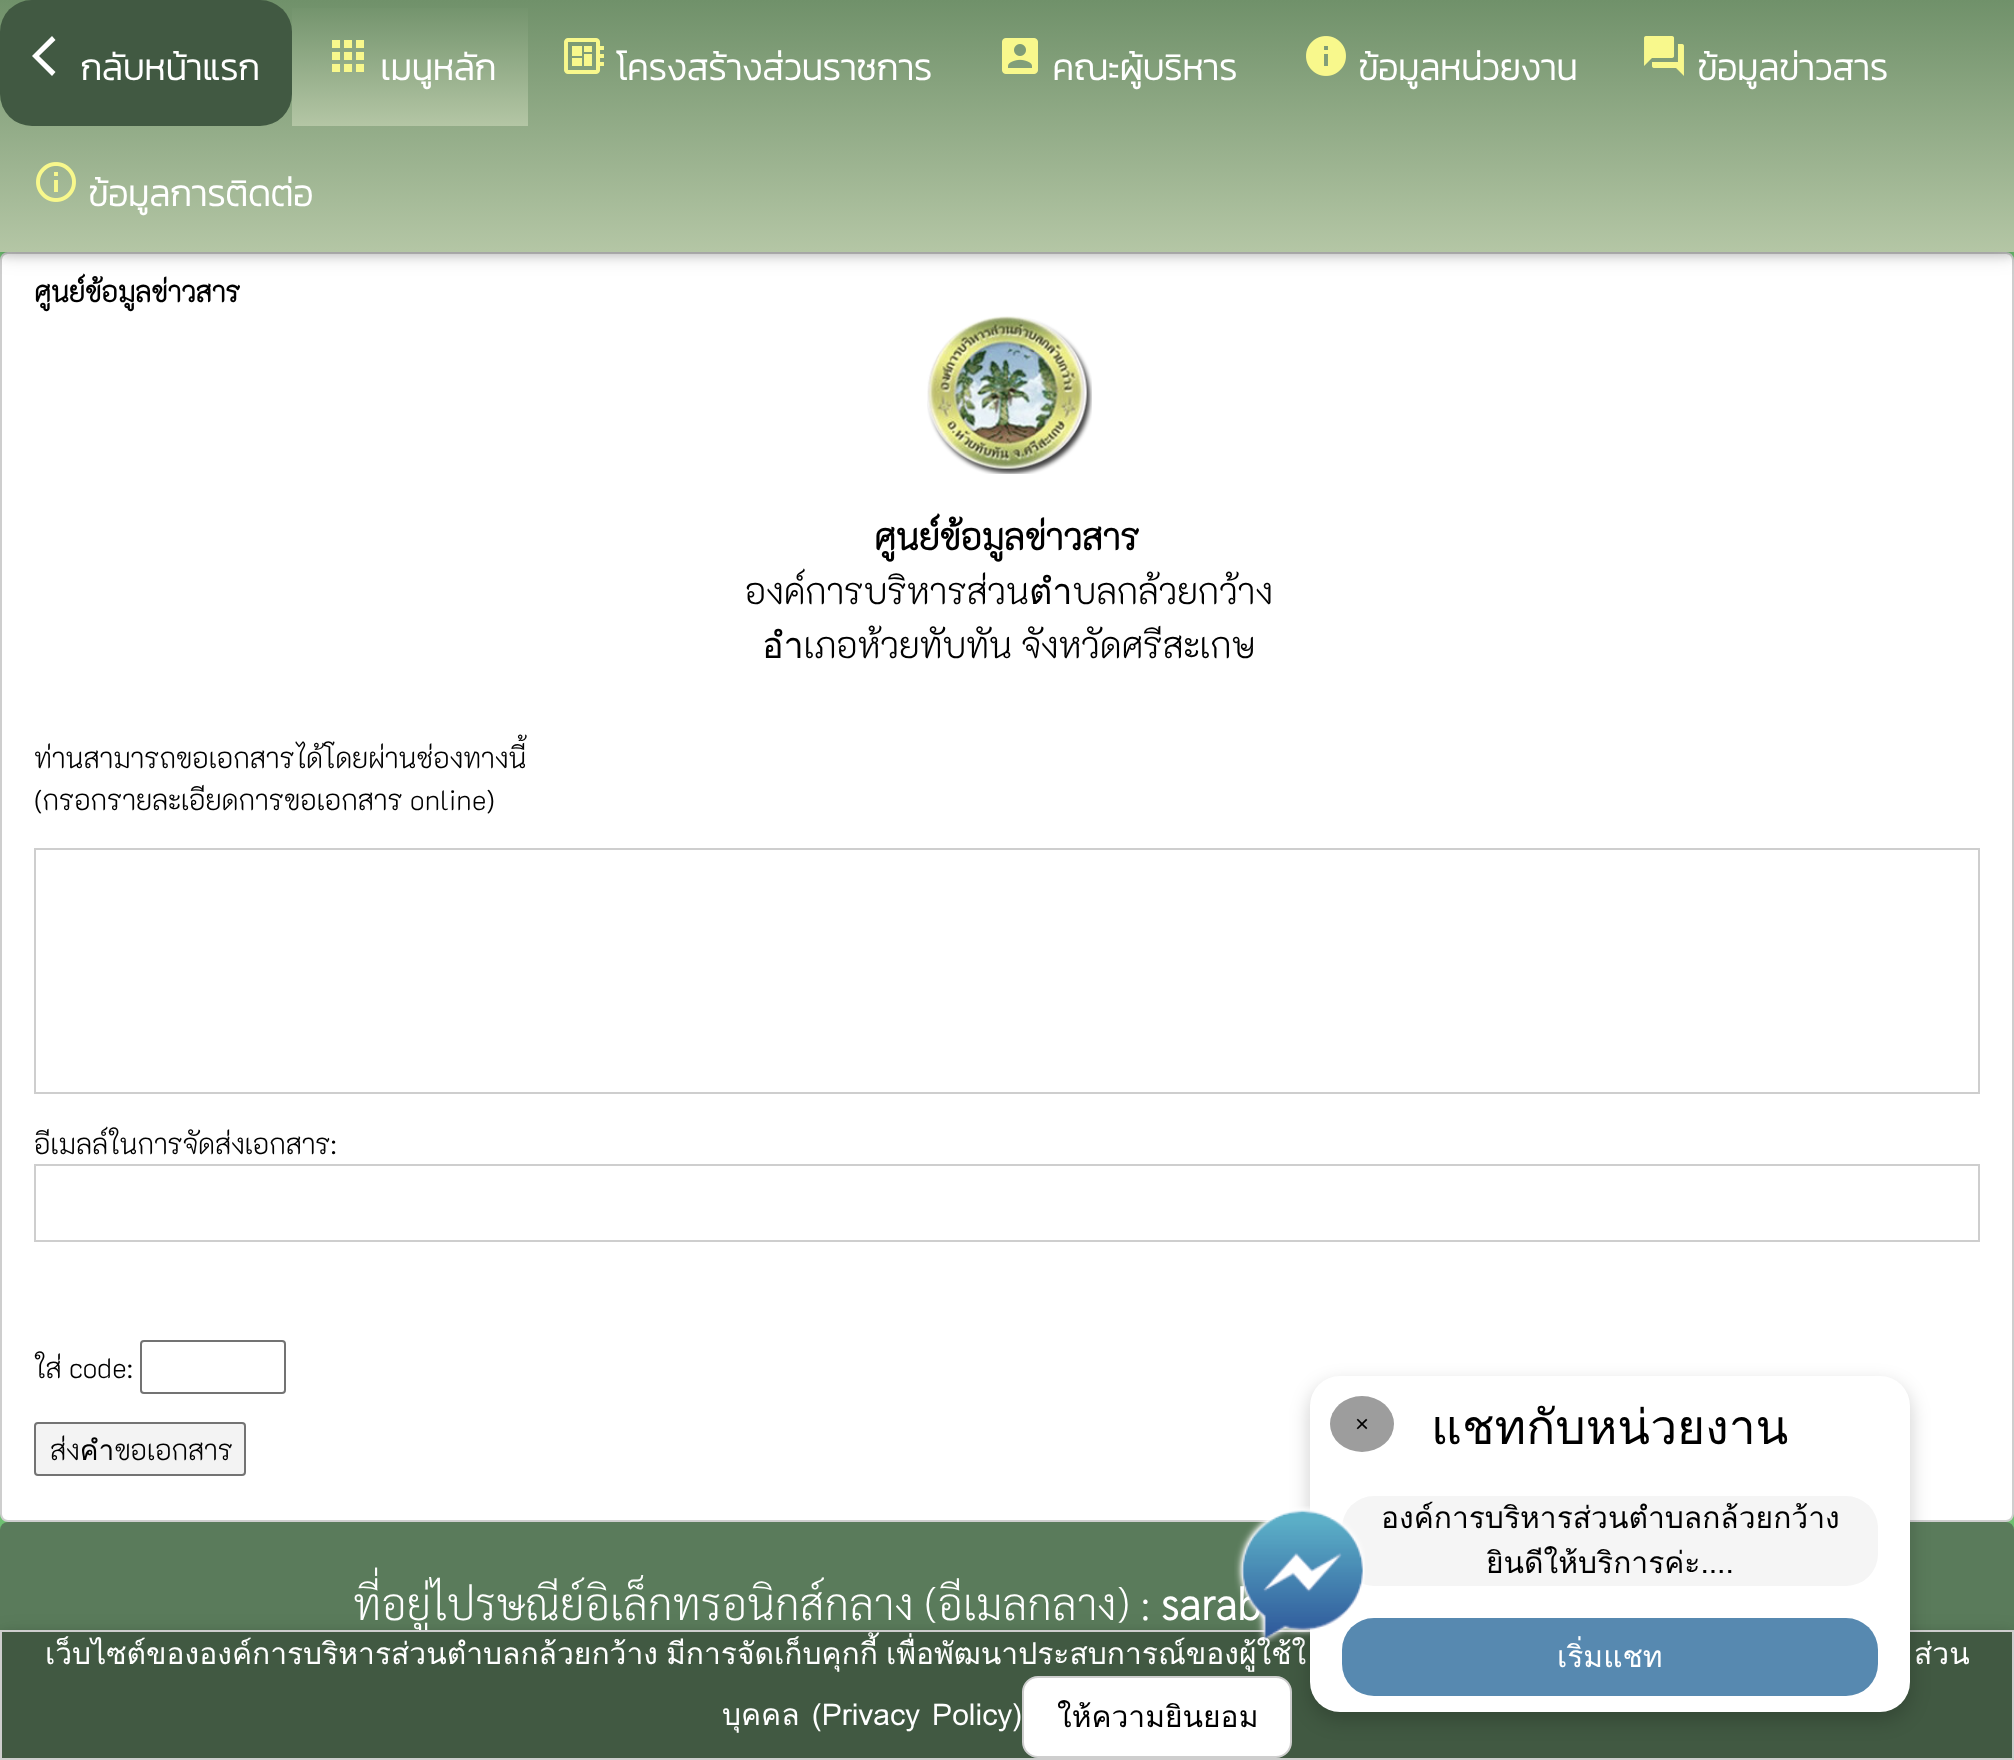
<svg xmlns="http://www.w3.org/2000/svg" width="2014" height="1760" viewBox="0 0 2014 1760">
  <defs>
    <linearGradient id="g1" gradientUnits="userSpaceOnUse" x1="1007" y1="0" x2="1007" y2="252"><stop offset="0" stop-color="#70916a"/><stop offset="1" stop-color="#b4c6a5"/></linearGradient>
    <linearGradient id="g2" gradientUnits="userSpaceOnUse" x1="410" y1="0" x2="410" y2="126"><stop offset="0" stop-color="#70916a"/><stop offset="1" stop-color="#b4c6a5"/></linearGradient>
  </defs>
  <rect width="100%" height="100%" fill="#6ec071"/>
  <rect x="1" y="253" width="2012" height="1268" rx="7" fill="#fff" stroke="#cecece" stroke-width="2"/>
  <path d="M0 4h2014v252H0z" fill="#0000001f" filter="blur(10px)"/>
  <path d="M0 4h2014v252H0z" fill="#00000029" filter="blur(5px)"/>
  <path d="M0 0h2014v252H0z" fill="url(#g1)"/>
  <rect width="292" height="126" rx="32" fill="#415942"/>
  <path d="M55.5 40L39 56L55.5 72L52 76L32 56L52 36Z" fill="#fff"/>
  <path d="M292 8h236v118H292z" fill="url(#g2)"/>
  <image x="332" y="40" width="32" height="32" href="img/1.png"/>
  <image x="564" y="38" width="40" height="36" href="img/2.png"/>
  <image x="1002" y="38" width="36" height="36" href="img/3.png"/>
  <image x="1306" y="36" width="40" height="40" href="img/4.png"/>
  <image x="1644" y="36" width="40" height="40" href="img/5.png"/>
  <image x="36" y="162" width="40" height="40" href="img/6.png"/>
  <image x="927" y="316" width="165" height="158" href="img/7.png"/>
  <path d="M35 849h1944v244H35z" fill="none" stroke="#cecece" stroke-width="2"/>
  <path d="M35 1165h1944v76H35z" fill="none" stroke="#cecece" stroke-width="2"/>
  <rect x="141" y="1341" width="144" height="52" rx="3" fill="none" stroke="#737373" stroke-width="2"/>
  <rect x="35" y="1423" width="210" height="52" rx="3" fill="#f3f3f3" stroke="#737373" stroke-width="2"/>
  <rect y="1522" width="2014" height="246" rx="8" fill="#5a7b5b"/>
  <path d="M0 1634h2014v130H0z" fill="#0000001f" filter="blur(10px)"/>
  <path d="M0 1634h2014v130H0z" fill="#00000029" filter="blur(5px)"/>
  <g font-family="Kanit" font-size="36" font-weight="bold" fill="#fff">
    <text x="80" y="80">กลับหน้าแรก</text>
    <text x="380" y="80">เมนูหลัก</text>
    <text x="616" y="80">โครงสร้างส่วนราชการ</text>
    <text x="1052" y="80">คณะผู้บริหาร</text>
    <text x="1358" y="80">ข้อมูลหน่วยงาน</text>
    <text x="1697" y="80">ข้อมูลข่าวสาร</text>
    <text x="88" y="206">ข้อมูลการติดต่อ</text>
  </g>
  <text x="34" y="302" font-family="'K2D'" font-size="28" font-weight="bold" fill="#000">ศูนย์ข้อมูลข่าวสาร</text>
  <text x="874" y="550" font-family="'K2D'" font-size="36" font-weight="bold" fill="#000">ศูนย์ข้อมูลข่าวสาร</text>
  <g font-family="'K2D'" font-size="36" font-weight="200" fill="#000">
    <text x="745" y="604">องค์การบริหารส่วนตำบลกล้วยกว้าง</text>
    <text x="762" y="658">อำเภอห้วยทับทัน จังหวัดศรีสะเกษ</text>
  </g>
  <g font-family="'K2D'" font-size="28" font-weight="200" fill="#000">
    <text x="34" y="768">ท่านสามารถขอเอกสารได้โดยผ่านช่องทางนี้</text>
    <text x="34" y="810">(กรอกรายละเอียดการขอเอกสาร online)</text>
    <text x="34" y="1154">อีเมลล์ในการจัดส่งเอกสาร:</text>
    <text x="34" y="1378">ใส่ code:</text>
    <text x="50" y="1460">ส่งคำขอเอกสาร</text>
  </g>
  <text x="353" y="1620" font-family="Sarabun" font-size="44" font-weight="200" fill="#fff">ที่อยู่ไปรษณีย์อิเล็กทรอนิกส์กลาง (อีเมลกลาง) :</text>
  <text x="1161" y="1620" font-family="Sarabun" font-size="44" font-weight="bold" fill="#fff">sarab</text>
  <path d="M1 1631h2012v128H1z" fill="#415942" stroke="#cecece" stroke-width="2"/>
  <g font-family="Loma" font-size="30" fill="#fff">
    <text x="45" y="1664" word-spacing="-2">เว็บไซต์ขององค์การบริหารส่วนตำบลกล้วยกว้าง มีการจัดเก็บคุกกี้ เพื่อพัฒนาประสบการณ์ของผู้ใช้ใ</text>
    <text x="1914" y="1664" word-spacing="-2">ส่วน</text>
    <text x="722" y="1725" word-spacing="2">บุคคล (Privacy Policy)</text>
  </g>
  <rect x="1023" y="1677" width="268" height="80" rx="15" fill="#fff" stroke="#cecece" stroke-width="2"/>
  <rect x="1310" y="1384" width="600" height="336" rx="30" fill="#00000033" filter="blur(10px)"/>
  <rect x="1310" y="1376" width="600" height="336" rx="30" fill="#fff"/>
  <rect x="1342" y="1618" width="536" height="78" rx="32" fill="#5789b0"/>
  <rect x="1342" y="1496" width="536" height="90" rx="32" fill="#f5f5f5"/>
  <image x="1234" y="1506" width="131" height="136" href="img/8.png"/>
  <ellipse cx="1362" cy="1424" rx="32" ry="28" fill="#9d9d9d"/>
  <text x="1355" y="1432" font-family="Liberation Sans" font-size="24" fill="#000">×</text>
  <text x="1557" y="1667" font-family="Loma" font-size="30" fill="#fff">เริ่มแชท</text>
  <g font-family="Loma" font-size="30" fill="#000">
    <text x="1486" y="1573">ยินดีให้บริการค่ะ....</text>
    <text x="1381" y="1528">องค์การบริหารส่วนตำบลกล้วยกว้าง</text>
  </g>
  <text x="1431" y="1444" font-family="Loma" font-size="48" fill="#000">แชทกับหน่วยงาน</text>
  <text x="1057" y="1727" font-family="Loma" font-size="30" fill="#000">ให้ความยินยอม</text>
</svg>
